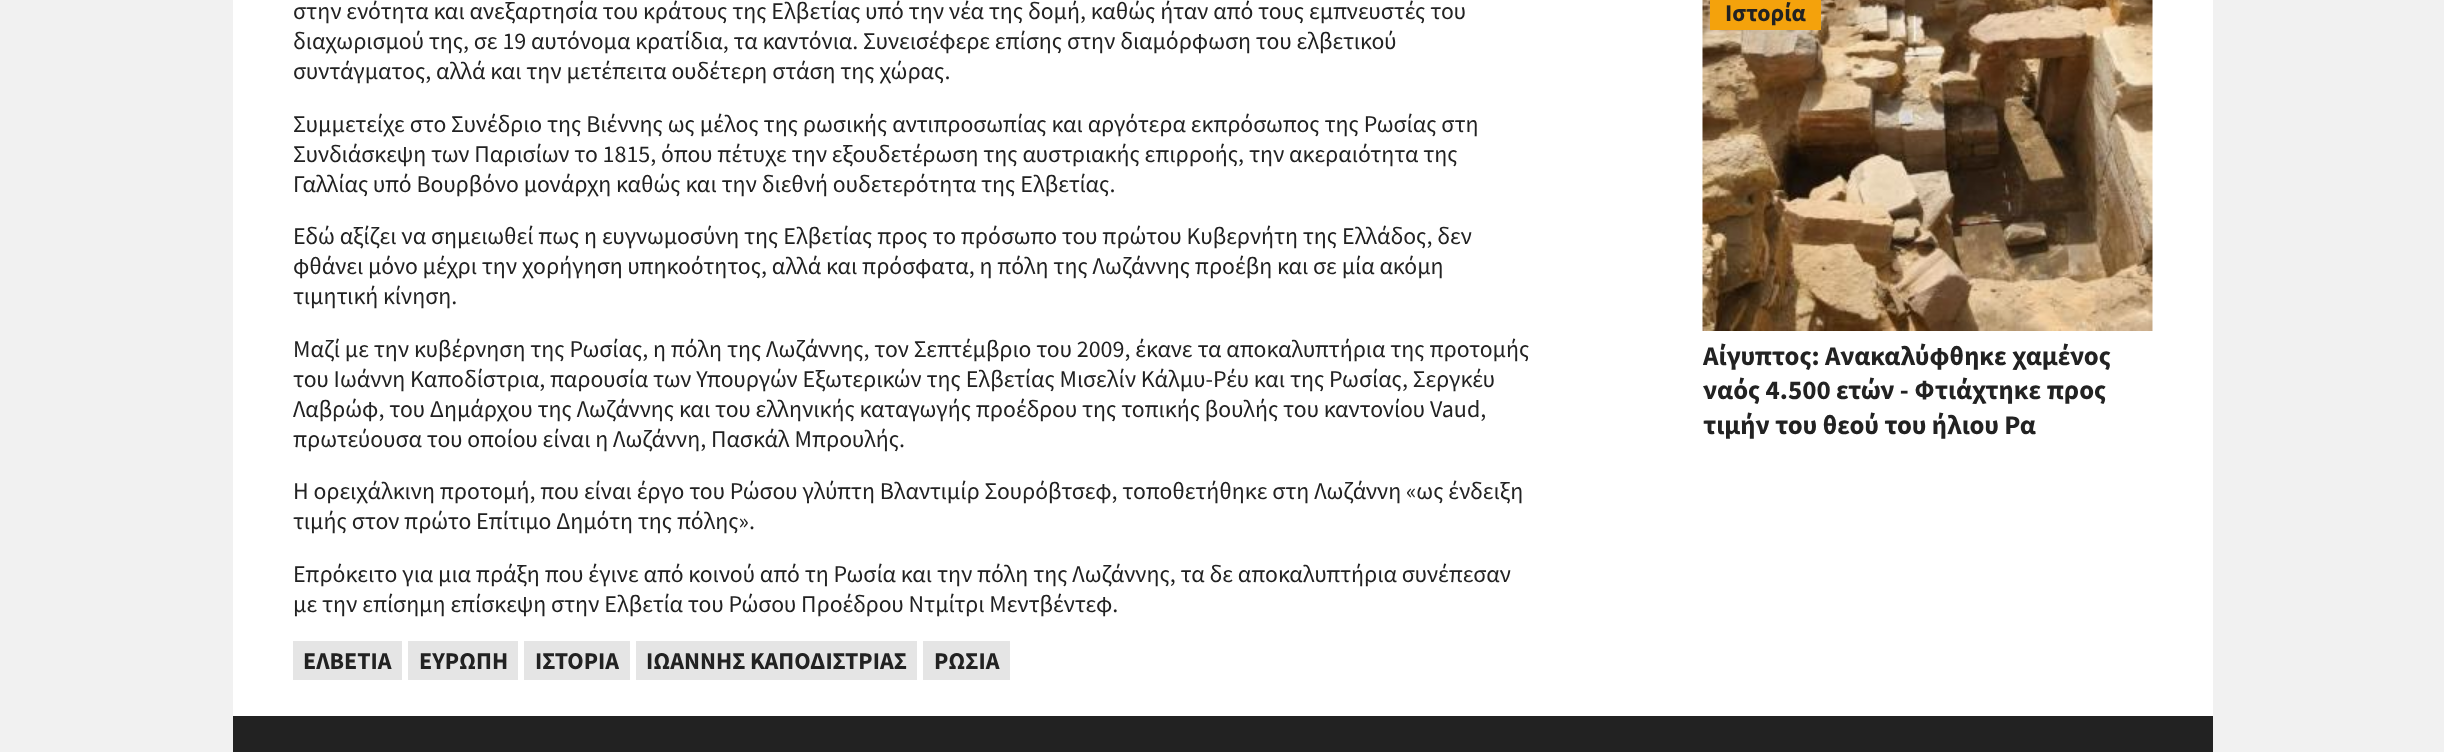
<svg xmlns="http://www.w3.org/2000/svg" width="2444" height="752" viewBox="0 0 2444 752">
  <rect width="100%" height="100%" fill="#f1f1f1"/>
  <path d="M233 0h1980v716H233z" fill="#fff"/>
  <path d="M293 641h109v39H293z" fill="#e5e5e5"/>
  <path d="M408 641h110v39H408z" fill="#e5e5e5"/>
  <path d="M524 641h106v39H524z" fill="#e5e5e5"/>
  <path d="M636 641h281v39H636z" fill="#e5e5e5"/>
  <path d="M923 641h87v39H923z" fill="#e5e5e5"/>
  <image x="1702" y="0" width="451" height="331" href="img/1.png"/>
  <path d="M1710 0h111v30H1710z" fill="#f4a20c"/>
  <path d="M233 716h1980v36H233z" fill="#222"/>
  <g font-family="Source Sans Pro" font-size="24" fill="#222">
    <text x="293" y="19">στην ενότητα και ανεξαρτησία του κράτους της Ελβετίας υπό την νέα της δομή, καθώς ήταν από τους εμπνευστές του</text>
    <text x="293" y="49">διαχωρισμού της, σε 19 αυτόνομα κρατίδια, τα καντόνια. Συνεισέφερε επίσης στην διαμόρφωση του ελβετικού</text>
    <text x="293" y="79">συντάγματος, αλλά και την μετέπειτα ουδέτερη στάση της χώρας.</text>
    <text x="293" y="132">Συμμετείχε στο Συνέδριο της Βιέννης ως μέλος της ρωσικής αντιπροσωπίας και αργότερα εκπρόσωπος της Ρωσίας στη</text>
    <text x="293" y="162">Συνδιάσκεψη των Παρισίων το 1815, όπου πέτυχε την εξουδετέρωση της αυστριακής επιρροής, την ακεραιότητα της</text>
    <text x="293" y="192">Γαλλίας υπό Βουρβόνο μονάρχη καθώς και την διεθνή ουδετερότητα της Ελβετίας.</text>
    <text x="293" y="244">Εδώ αξίζει να σημειωθεί πως η ευγνωμοσύνη της Ελβετίας προς το πρόσωπο του πρώτου Κυβερνήτη της Ελλάδος, δεν</text>
    <text x="293" y="274">φθάνει μόνο μέχρι την χορήγηση υπηκοότητος, αλλά και πρόσφατα, η πόλη της Λωζάννης προέβη και σε μία ακόμη</text>
    <text x="293" y="304">τιμητική κίνηση.</text>
    <text x="293" y="357">Μαζί με την κυβέρνηση της Ρωσίας, η πόλη της Λωζάννης, τον Σεπτέμβριο του 2009, έκανε τα αποκαλυπτήρια της προτομής</text>
    <text x="293" y="387">του Ιωάννη Καποδίστρια, παρουσία των Υπουργών Εξωτερικών της Ελβετίας Mισελίν Κάλμυ-Ρέυ και της Ρωσίας, Σεργκέυ</text>
    <text x="293" y="417">Λαβρώφ, του Δημάρχου της Λωζάννης και του ελληνικής καταγωγής προέδρου της τοπικής βουλής του καντονίου Vaud,</text>
    <text x="293" y="447">πρωτεύουσα του οποίου είναι η Λωζάννη, Πασκάλ Μπρουλής.</text>
    <text x="293" y="499">Η ορειχάλκινη προτομή, που είναι έργο του Ρώσου γλύπτη Βλαντιμίρ Σουρόβτσεφ, τοποθετήθηκε στη Λωζάννη «ως ένδειξη</text>
    <text x="293" y="529">τιμής στον πρώτο Επίτιμο Δημότη της πόλης».</text>
    <text x="293" y="582">Επρόκειτο για μια πράξη που έγινε από κοινού από τη Ρωσία και την πόλη της Λωζάννης, τα δε αποκαλυπτήρια συνέπεσαν</text>
    <text x="293" y="612">με την επίσημη επίσκεψη στην Ελβετία του Ρώσου Προέδρου Ντμίτρι Μεντβέντεφ.</text>
  </g>
  <g font-family="Source Sans Pro" font-size="24" font-weight="bold" fill="#222">
    <text x="303" y="669">ΕΛΒΕΤΙΑ</text>
    <text x="419" y="669">ΕΥΡΩΠΗ</text>
    <text x="535" y="669">ΙΣΤΟΡΙΑ</text>
    <text x="646" y="669">ΙΩΑΝΝΗΣ ΚΑΠΟΔΙΣΤΡΙΑΣ</text>
    <text x="934" y="669">ΡΩΣΙΑ</text>
    <text x="1725" y="21">Ιστορία</text>
  </g>
  <g font-family="Source Sans Pro" font-size="27" font-weight="bold" fill="#222">
    <text x="1703" y="365">Αίγυπτος: Ανακαλύφθηκε χαμένος</text>
    <text x="1703" y="399">ναός 4.500 ετών - Φτιάχτηκε προς</text>
    <text x="1703" y="434">τιμήν του θεού του ήλιου Ρα</text>
  </g>
</svg>
